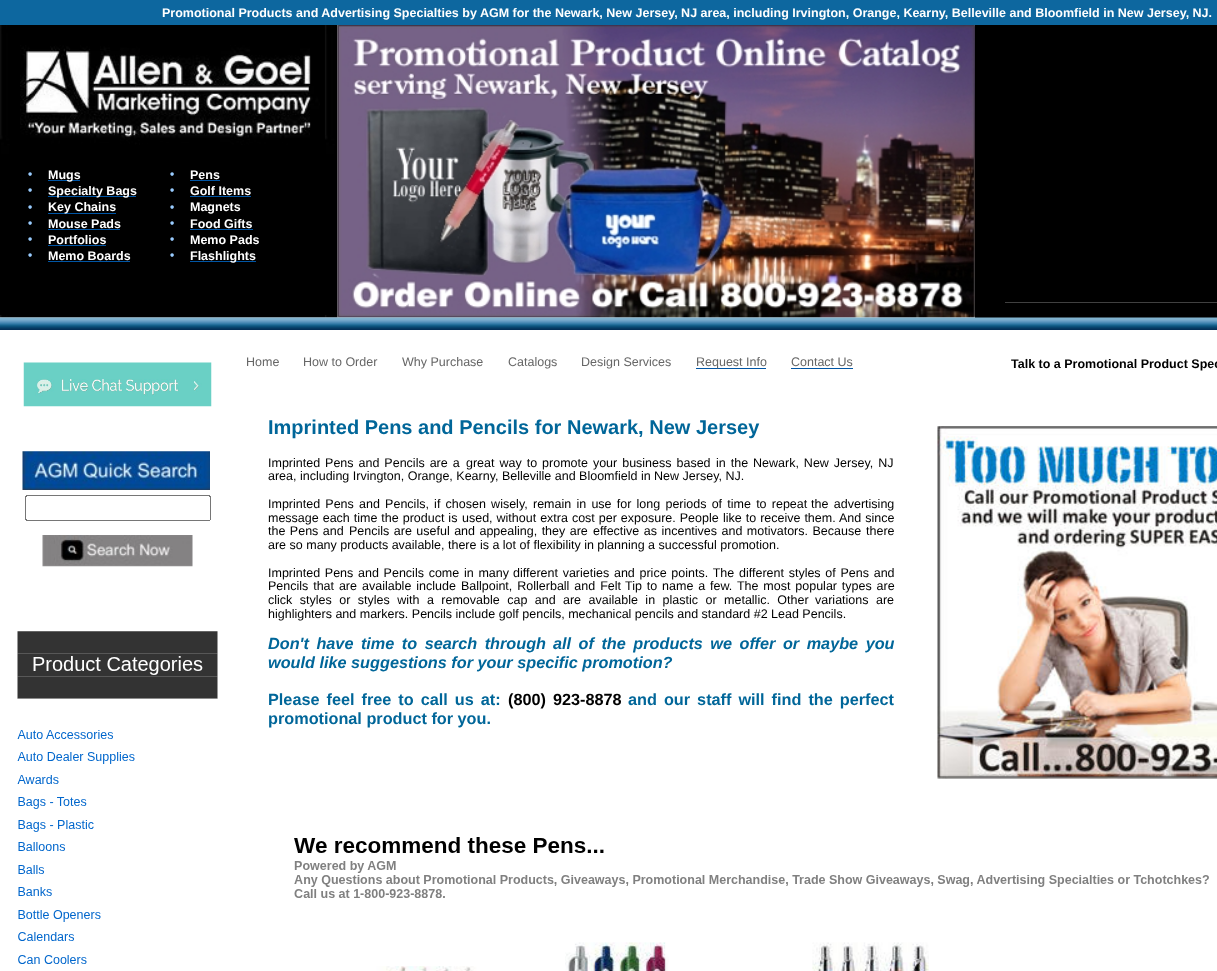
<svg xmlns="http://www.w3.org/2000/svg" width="1217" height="971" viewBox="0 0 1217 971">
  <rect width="100%" height="100%" fill="#fff"/>
  <path d="M0 0h1217v25H0z" fill="#0d679f"/>
  <image x="0" y="25" width="338" height="293" href="img/1.png"/>
  <path d="M48 180h32v1H48z" fill="#0055a5"/>
  <path d="M190 180h30v1H190z" fill="#0055a5"/>
  <path d="M48 196h88v1H48z" fill="#0055a5"/>
  <path d="M190 196h61v1H190z" fill="#0055a5"/>
  <path d="M48 213h68v1H48z" fill="#0055a5"/>
  <path d="M48 229h72v1H48z" fill="#0055a5"/>
  <path d="M190 229h63v1H190z" fill="#0055a5"/>
  <path d="M48 245h58v1H48z" fill="#0055a5"/>
  <path d="M48 261h82v1H48z" fill="#0055a5"/>
  <path d="M190 261h66v1H190z" fill="#0055a5"/>
  <image x="337" y="25" width="638" height="293" href="img/2.png"/>
  <path d="M975 25h242v293H975z" fill="#000"/>
  <path d="M1005 302h212v1H1005z" fill="#404040"/>
  <image x="0" y="317" width="1217" height="13" href="img/3.png"/>
  <image x="17" y="362" width="201" height="602" href="img/4.png"/>
  <path d="M696 368h70v1H696z" fill="#0055a5"/>
  <path d="M791 368h62v1H791z" fill="#0055a5"/>
  <image x="937" y="426" width="280" height="353" href="img/5.png"/>
  <image x="294" y="837" width="915" height="134" href="img/6.png"/>
  <text x="162" y="17" font-family="Liberation Sans" font-size="12.5" font-weight="bold" fill="#fff">Promotional Products and Advertising Specialties by AGM for the Newark, New Jersey, NJ area, including Irvington, Orange, Kearny, Belleville and Bloomfield in New Jersey, NJ.</text>
  <text x="28" y="178" font-family="Liberation Sans" font-size="12" font-weight="bold" fill="#9cf">•</text>
  <text x="48" y="179" font-family="Liberation Sans" font-size="12.5" font-weight="bold" fill="#fff">Mugs</text>
  <text x="170" y="178" font-family="Liberation Sans" font-size="12" font-weight="bold" fill="#9cf">•</text>
  <text x="190" y="179" font-family="Liberation Sans" font-size="12.5" font-weight="bold" fill="#fff">Pens</text>
  <text x="28" y="194" font-family="Liberation Sans" font-size="12" font-weight="bold" fill="#9cf">•</text>
  <text x="48" y="195" font-family="Liberation Sans" font-size="12.5" font-weight="bold" fill="#fff">Specialty Bags</text>
  <text x="170" y="194" font-family="Liberation Sans" font-size="12" font-weight="bold" fill="#9cf">•</text>
  <text x="190" y="195" font-family="Liberation Sans" font-size="12.5" font-weight="bold" fill="#fff">Golf Items</text>
  <text x="28" y="211" font-family="Liberation Sans" font-size="12" font-weight="bold" fill="#9cf">•</text>
  <text x="48" y="211" font-family="Liberation Sans" font-size="12.5" font-weight="bold" fill="#fff">Key Chains</text>
  <text x="170" y="211" font-family="Liberation Sans" font-size="12" font-weight="bold" fill="#9cf">•</text>
  <text x="190" y="211" font-family="Liberation Sans" font-size="12.5" font-weight="bold" fill="#fff">Magnets</text>
  <text x="28" y="227" font-family="Liberation Sans" font-size="12" font-weight="bold" fill="#9cf">•</text>
  <text x="48" y="228" font-family="Liberation Sans" font-size="12.5" font-weight="bold" fill="#fff">Mouse Pads</text>
  <text x="170" y="227" font-family="Liberation Sans" font-size="12" font-weight="bold" fill="#9cf">•</text>
  <text x="190" y="228" font-family="Liberation Sans" font-size="12.5" font-weight="bold" fill="#fff">Food Gifts</text>
  <text x="28" y="243" font-family="Liberation Sans" font-size="12" font-weight="bold" fill="#9cf">•</text>
  <text x="48" y="244" font-family="Liberation Sans" font-size="12.5" font-weight="bold" fill="#fff">Portfolios</text>
  <text x="170" y="243" font-family="Liberation Sans" font-size="12" font-weight="bold" fill="#9cf">•</text>
  <text x="190" y="244" font-family="Liberation Sans" font-size="12.5" font-weight="bold" fill="#fff">Memo Pads</text>
  <text x="28" y="259" font-family="Liberation Sans" font-size="12" font-weight="bold" fill="#9cf">•</text>
  <text x="48" y="260" font-family="Liberation Sans" font-size="12.5" font-weight="bold" fill="#fff">Memo Boards</text>
  <text x="170" y="259" font-family="Liberation Sans" font-size="12" font-weight="bold" fill="#9cf">•</text>
  <text x="190" y="260" font-family="Liberation Sans" font-size="12.5" font-weight="bold" fill="#fff">Flashlights</text>
  <g font-family="Liberation Sans" font-size="12.5" fill="#666">
    <text x="246" y="366">Home</text>
    <text x="303" y="366">How to Order</text>
    <text x="402" y="366">Why Purchase</text>
    <text x="508" y="366">Catalogs</text>
    <text x="581" y="366">Design Services</text>
    <text x="696" y="366">Request Info</text>
    <text x="791" y="366">Contact Us</text>
  </g>
  <text x="1011" y="368" font-family="Liberation Sans" font-size="12.5" font-weight="bold" fill="#000">Talk to a Promotional Product Spec</text>
  <text x="268" y="434" font-family="Liberation Sans" font-size="20" font-weight="bold" fill="#069">Imprinted Pens and Pencils for Newark, New Jersey</text>
  <g font-family="Liberation Sans" font-size="12.5" fill="#000">
    <text x="268" y="467" word-spacing="1.5">Imprinted Pens and Pencils are a</text>
    <text x="466" y="467" word-spacing="1.5">great way to promote your business based</text>
    <text x="716" y="467" word-spacing="1.5">in the Newark, New Jersey, NJ</text>
    <text x="268" y="480">area, including Irvington, Orange, Kearny, Belleville and Bloomfield in New Jersey, NJ.</text>
    <text x="268" y="508" word-spacing="1.75">Imprinted Pens and Pencils, if chosen wisely,</text>
    <text x="533" y="508" word-spacing="1.75">remain in use for long periods of time to repeat</text>
    <text x="811" y="508" word-spacing="2">the advertising</text>
    <text x="268" y="522" word-spacing="0.5">message each time the product is</text>
    <text x="462" y="522" word-spacing="0.5">used, without extra cost per exposure. People</text>
    <text x="723" y="522" word-spacing="0.5">like to receive them. And since</text>
    <text x="268" y="535" word-spacing="1">the Pens and</text>
    <text x="349" y="535" word-spacing="1">Pencils are useful and appealing, they are</text>
    <text x="593" y="535" word-spacing="1">effective as incentives and motivators. Because</text>
    <text x="866" y="535">there</text>
    <text x="268" y="549">are so many products available, there is a lot of flexibility in planning a successful promotion.</text>
    <text x="268" y="577" word-spacing="1.25">Imprinted Pens and Pencils come in many</text>
    <text x="513" y="577" word-spacing="1.25">different varieties and price points. The</text>
    <text x="739" y="577" word-spacing="1.25">different styles of Pens and</text>
    <text x="268" y="590" word-spacing="1.4">Pencils that are</text>
    <text x="362" y="590" word-spacing="1.5">available include Ballpoint, Rollerball and Felt</text>
    <text x="625" y="590" word-spacing="1.4">Tip to name a few. The most popular types are</text>
    <text x="268" y="604" word-spacing="4">click styles or styles with a removable cap and</text>
    <text x="563" y="604" word-spacing="4">are available in plastic or metallic. Other</text>
    <text x="815" y="604" word-spacing="4">variations are</text>
    <text x="268" y="618">highlighters and markers. Pencils include golf pencils, mechanical pencils and standard #2 Lead Pencils.</text>
  </g>
  <g font-family="Liberation Sans" font-size="16.25" font-weight="bold" font-style="italic" fill="#069">
    <text x="268" y="649" word-spacing="3">Don't have time to search through</text>
    <text x="553" y="649" word-spacing="3">all of the products we offer or maybe you</text>
    <text x="268" y="668">would like suggestions for your specific promotion?</text>
  </g>
  <text x="268" y="705" word-spacing="2.5" font-family="Liberation Sans" font-size="16.25" font-weight="bold" fill="#069">Please feel free to call us at:</text>
  <text x="508" y="705" word-spacing="2.5" font-family="Liberation Sans" font-size="16.25" font-weight="bold" fill="#000">(800) 923-8878</text>
  <g font-family="Liberation Sans" font-size="16.25" font-weight="bold" fill="#069">
    <text x="628" y="705" word-spacing="2.5">and our staff will find the perfect</text>
    <text x="268" y="724">promotional product for you.</text>
  </g>
</svg>
